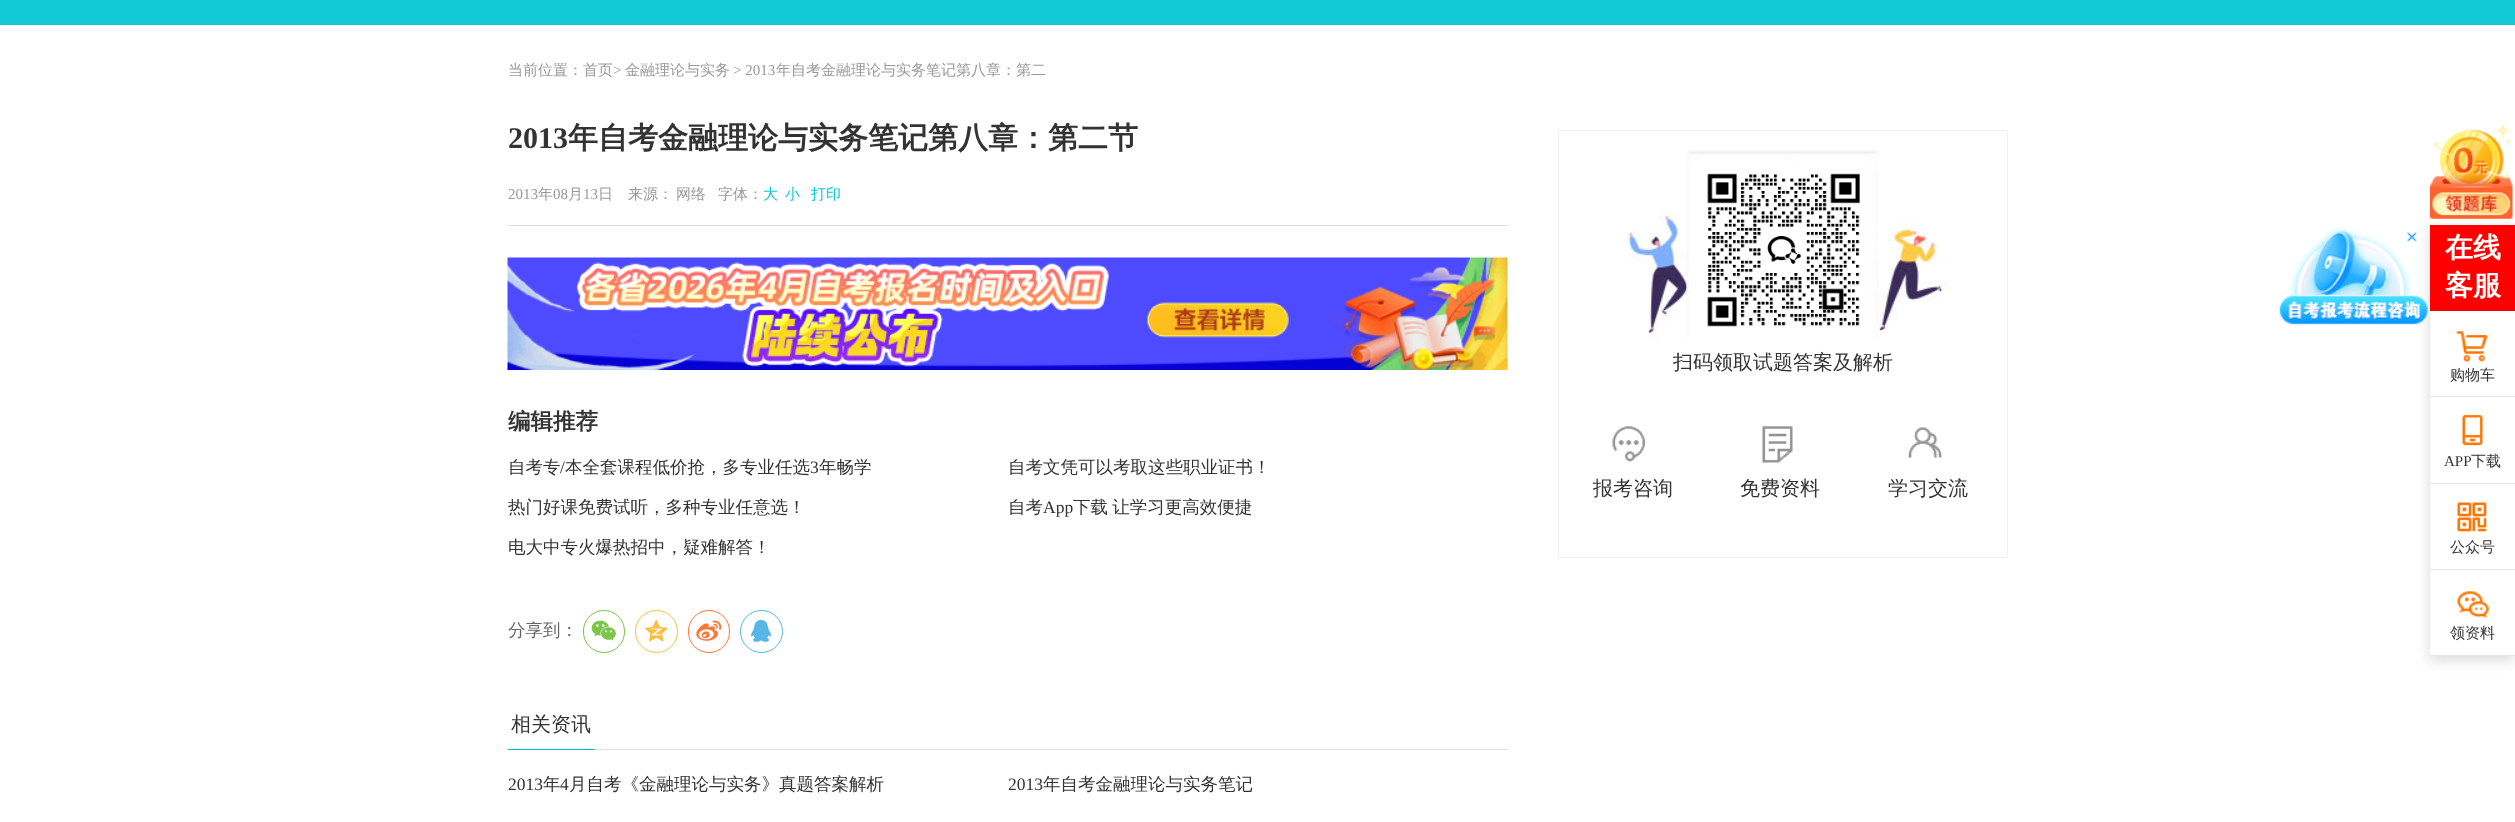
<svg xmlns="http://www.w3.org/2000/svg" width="2515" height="822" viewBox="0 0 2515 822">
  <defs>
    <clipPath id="clip1"><path d="M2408 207H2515V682H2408ZM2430 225H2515V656H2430Z" clip-rule="evenodd"/></clipPath>
  </defs>
  <rect width="100%" height="100%" fill="#fff"/>
  <path d="M0 0h2515v25H0z" fill="#12c8d5"/>
  <path d="M508 225h1000v1H508z" fill="#e0e0e0"/>
  <image x="507" y="257" width="1001" height="113" href="img/1.png"/>
  <rect x="583.5" y="610.5" width="41" height="42" rx="20.5" fill="none" stroke="#7bc549"/>
  <image x="591" y="620" width="25" height="21" href="img/2.png"/>
  <circle cx="656.5" cy="631.5" r="21" fill="none" stroke="#fdbe3d"/>
  <image x="644" y="619" width="24" height="23" href="img/3.png"/>
  <rect x="688.5" y="610.5" width="41" height="42" rx="20.5" fill="none" stroke="#ff763b"/>
  <image x="696" y="620" width="26" height="21" href="img/4.png"/>
  <circle cx="761.5" cy="631.5" r="21" fill="none" stroke="#56b6e7"/>
  <image x="751" y="619" width="20" height="23" href="img/5.png"/>
  <path d="M595 749h913v1H595z" fill="#e0e0e0"/>
  <path d="M508 749h87v1H508z" fill="#02bcc9"/>
  <image x="1628" y="150" width="321" height="191" href="img/6.png"/>
  <path d="M1558.5 130.5h449v427H1558.5z" fill="none" stroke="#f0f0f0"/>
  <image x="1707" y="173" width="153" height="154" href="img/7.png"/>
  <image x="1612" y="426" width="34" height="36" href="img/8.png"/>
  <image x="1762" y="426" width="31" height="37" href="img/9.png"/>
  <image x="1908" y="427" width="34" height="31" href="img/10.png"/>
  <g clip-path="url(#clip1)">
    <path d="M2430 229h85v431H2430z" fill="#d9d9d9" filter="blur(7px)"/>
  </g>
  <image x="2430" y="124" width="83" height="95" href="img/11.png"/>
  <image x="2278" y="226" width="151" height="99" href="img/12.png"/>
  <path d="M2430 225h85v86H2430z" fill="#f00"/>
  <path d="M2430 396h85v1H2430z" fill="#e8e8e8"/>
  <image x="2456" y="331" width="32" height="32" href="img/13.png"/>
  <path d="M2430 483h85v1H2430z" fill="#e8e8e8"/>
  <image x="2462" y="414" width="21" height="32" href="img/14.png"/>
  <path d="M2430 569h85v1H2430z" fill="#e8e8e8"/>
  <image x="2457" y="502" width="30" height="30" href="img/15.png"/>
  <path d="M2430 655h85v1H2430z" fill="#e8e8e8"/>
  <image x="2457" y="591" width="32" height="27" href="img/16.png"/>
  <text x="508" y="75" font-family="WenQuanYi Zen Hei" font-size="15" font-weight="500" fill="#999">当前位置：首页</text>
  <text x="613" y="75" font-family="Liberation Serif" font-size="15" fill="#999">&gt;</text>
  <text x="625" y="75" font-family="WenQuanYi Zen Hei" font-size="15" font-weight="500" fill="#999">金融理论与实务</text>
  <text x="733" y="75" font-family="Liberation Serif" font-size="15" fill="#999">&gt; 2013</text>
  <text x="776" y="75" font-family="WenQuanYi Zen Hei" font-size="15" font-weight="500" fill="#999">年自考金融理论与实务笔记第八章：第二</text>
  <text x="508" y="148" font-family="Liberation Serif" font-size="30" font-weight="bold" fill="#333">2013</text>
  <text x="568" y="148" font-family="WenQuanYi Zen Hei" font-size="30" font-weight="bold" fill="#333">年自考金融理论与实务笔记第八章：第二节</text>
  <text x="508" y="199" font-family="Liberation Serif" font-size="15" fill="#999">2013</text>
  <text x="538" y="199" font-family="WenQuanYi Zen Hei" font-size="15" font-weight="500" fill="#999">年</text>
  <text x="553" y="199" font-family="Liberation Serif" font-size="15" fill="#999">08</text>
  <text x="568" y="199" font-family="WenQuanYi Zen Hei" font-size="15" font-weight="500" fill="#999">月</text>
  <text x="583" y="199" font-family="Liberation Serif" font-size="15" fill="#999">13</text>
  <g font-family="WenQuanYi Zen Hei" font-size="15" font-weight="500" fill="#999">
    <text x="598" y="199">日</text>
    <text x="628" y="199">来源：</text>
    <text x="676" y="199">网络</text>
    <text x="718" y="199">字体：</text>
  </g>
  <g font-family="WenQuanYi Zen Hei" font-size="15" font-weight="500" fill="#00cbda">
    <text x="763" y="199">大</text>
    <text x="785" y="199">小</text>
    <text x="811" y="199">打印</text>
  </g>
  <text x="508" y="429" font-family="WenQuanYi Zen Hei" font-size="22.5" font-weight="bold" fill="#333">编辑推荐</text>
  <text x="508" y="473" font-family="WenQuanYi Zen Hei" font-size="17.5" font-weight="500" fill="#333">自考专</text>
  <text x="560" y="473" font-family="Liberation Serif" font-size="17.5" fill="#333">/</text>
  <text x="565" y="473" font-family="WenQuanYi Zen Hei" font-size="17.5" font-weight="500" fill="#333">本全套课程低价抢，多专业任选</text>
  <text x="810" y="473" font-family="Liberation Serif" font-size="17.5" fill="#333">3</text>
  <g font-family="WenQuanYi Zen Hei" font-size="17.5" font-weight="500" fill="#333">
    <text x="819" y="473">年畅学</text>
    <text x="1008" y="473">自考文凭可以考取这些职业证书！</text>
    <text x="508" y="513">热门好课免费试听，多种专业任意选！</text>
    <text x="1008" y="513">自考</text>
  </g>
  <text x="1043" y="513" font-family="Liberation Serif" font-size="17.5" fill="#333">App</text>
  <g font-family="WenQuanYi Zen Hei" font-size="17.5" font-weight="500" fill="#333">
    <text x="1073" y="513" word-spacing="-1">下载 让学习更高效便捷</text>
    <text x="508" y="553">电大中专火爆热招中，疑难解答！</text>
  </g>
  <text x="508" y="636" font-family="WenQuanYi Zen Hei" font-size="17.5" font-weight="500" fill="#666">分享到：</text>
  <text x="511" y="731" font-family="WenQuanYi Zen Hei" font-size="20" font-weight="500" fill="#333">相关资讯</text>
  <text x="508" y="790" font-family="Liberation Serif" font-size="17.5" fill="#333">2013</text>
  <text x="543" y="790" font-family="WenQuanYi Zen Hei" font-size="17.5" font-weight="500" fill="#333">年</text>
  <text x="560" y="790" font-family="Liberation Serif" font-size="17.5" fill="#333">4</text>
  <text x="569" y="790" font-family="WenQuanYi Zen Hei" font-size="17.5" font-weight="500" fill="#333">月自考《金融理论与实务》真题答案解析</text>
  <text x="1008" y="790" font-family="Liberation Serif" font-size="17.5" fill="#333">2013</text>
  <text x="1043" y="790" font-family="WenQuanYi Zen Hei" font-size="17.5" font-weight="500" fill="#333">年自考金融理论与实务笔记</text>
  <g font-family="WenQuanYi Zen Hei" font-size="20" font-weight="500" fill="#333">
    <text x="1673" y="369">扫码领取试题答案及解析</text>
    <text x="1593" y="495">报考咨询</text>
    <text x="1740" y="495">免费资料</text>
    <text x="1888" y="495">学习交流</text>
  </g>
  <g font-family="WenQuanYi Zen Hei" font-size="28" font-weight="bold" fill="#fff">
    <text x="2445" y="257">在线</text>
    <text x="2445" y="295">客服</text>
  </g>
  <text x="2450" y="380" font-family="WenQuanYi Zen Hei" font-size="15" font-weight="500" fill="#333">购物车</text>
  <text x="2444" y="466" font-family="Liberation Serif" font-size="15" fill="#333">APP</text>
  <g font-family="WenQuanYi Zen Hei" font-size="15" font-weight="500" fill="#333">
    <text x="2471" y="466">下载</text>
    <text x="2450" y="552">公众号</text>
    <text x="2450" y="638">领资料</text>
  </g>
</svg>
